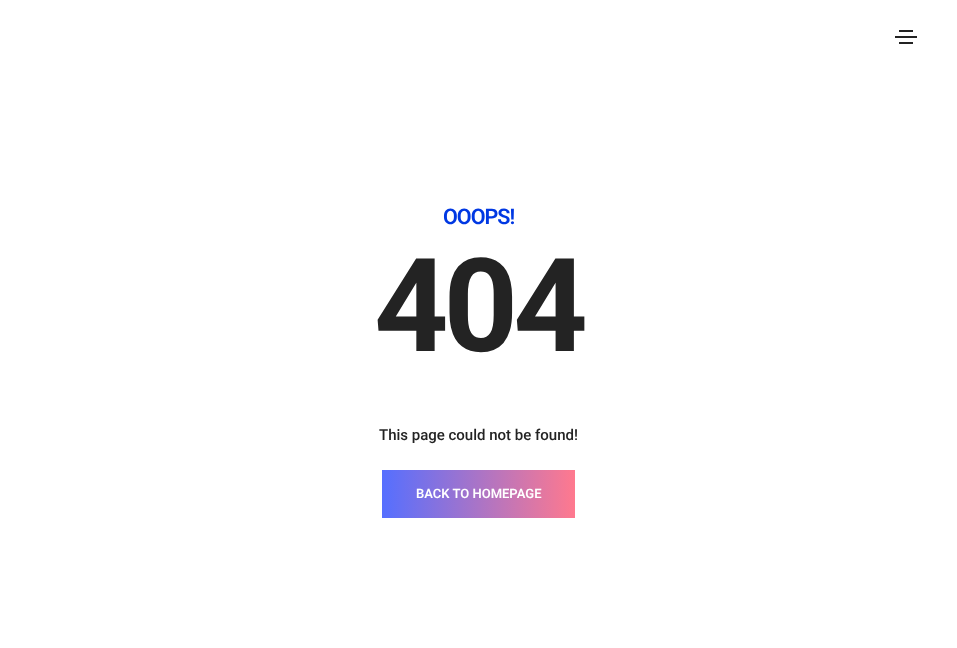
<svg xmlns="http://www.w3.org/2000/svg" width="957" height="648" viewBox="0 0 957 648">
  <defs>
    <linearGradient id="g1" gradientUnits="userSpaceOnUse" x1="382" y1="494" x2="768" y2="494"><stop offset="0" stop-color="#556fff"/><stop offset="0.5" stop-color="#ff798e"/><stop offset="1" stop-color="#556fff"/></linearGradient>
  </defs>
  <rect width="100%" height="100%" fill="#fff"/>
  <path d="M899 30h14v2H899z" fill="#232323"/>
  <path d="M895 36h22v2H895z" fill="#232323"/>
  <path d="M899 42h14v2H899z" fill="#232323"/>
  <path d="M382 470h193v48H382z" fill="url(#g1)"/>
  <text x="443" y="224" font-family="Roboto" font-size="21.5" font-weight="600" letter-spacing="-1" fill="#0038e3">OOOPS!</text>
  <text x="374" y="351" font-family="Roboto" font-size="130" font-weight="bold" letter-spacing="-5" fill="#232323">404</text>
  <text x="379" y="440" font-family="Roboto" font-size="15" font-weight="500" fill="#232323">This page could not be found!</text>
  <text x="416" y="498" font-family="Roboto" font-size="13" font-weight="600" fill="#fff">BACK TO HOMEPAGE</text>
</svg>
